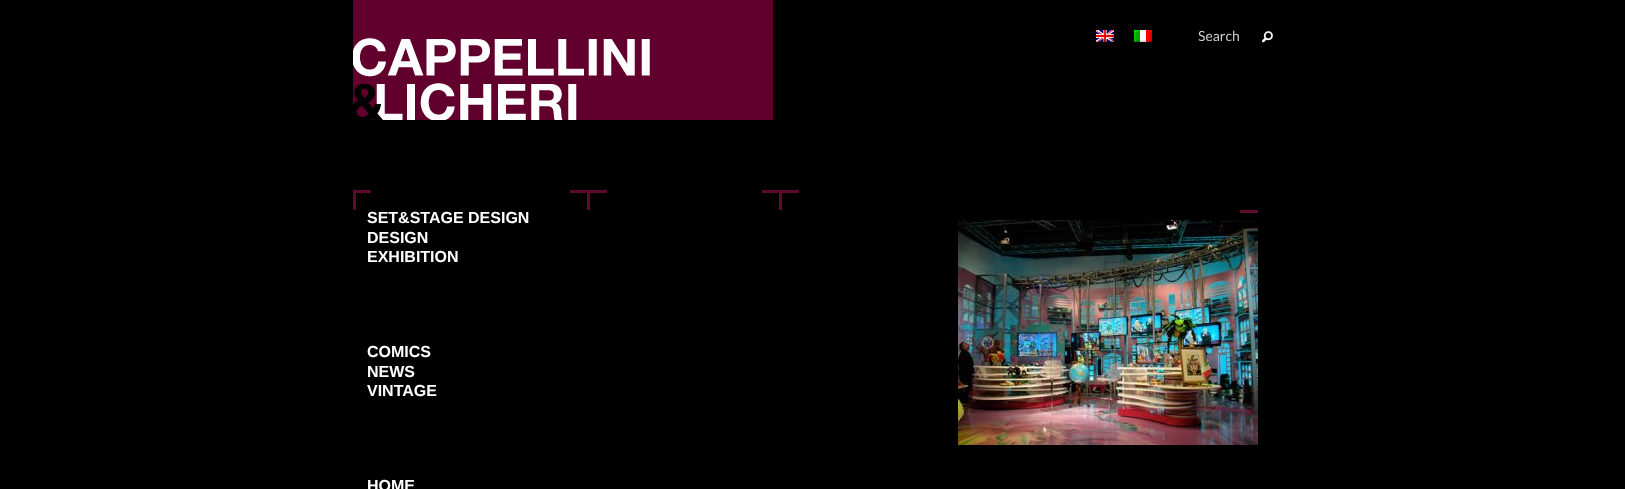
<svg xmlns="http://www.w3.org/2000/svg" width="1625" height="489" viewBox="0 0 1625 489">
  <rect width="100%" height="100%" fill="#000"/>
  <image x="353" y="0" width="420" height="120" href="img/1.png"/>
  <image x="1096" y="30" width="18" height="12" href="img/2.png"/>
  <image x="1134" y="30" width="18" height="12" href="img/3.png"/>
  <image x="1262" y="31" width="11" height="12" href="img/4.png"/>
  <image x="353" y="190" width="446" height="20" href="img/5.png"/>
  <path d="M1240 210h18v3H1240z" fill="#5e0a2e"/>
  <image x="958" y="220" width="300" height="225" href="img/6.png"/>
  <text x="1198" y="41" font-family="Lato" font-size="14" fill="#ccc">Search</text>
  <g font-family="Liberation Sans" font-size="16" font-weight="bold" fill="#fff">
    <text x="367" y="223">SET&amp;STAGE DESIGN</text>
    <text x="367" y="243">DESIGN</text>
    <text x="367" y="262">EXHIBITION</text>
    <text x="367" y="357">COMICS</text>
    <text x="367" y="377">NEWS</text>
    <text x="367" y="396">VINTAGE</text>
    <text x="367" y="491">HOME</text>
  </g>
</svg>
